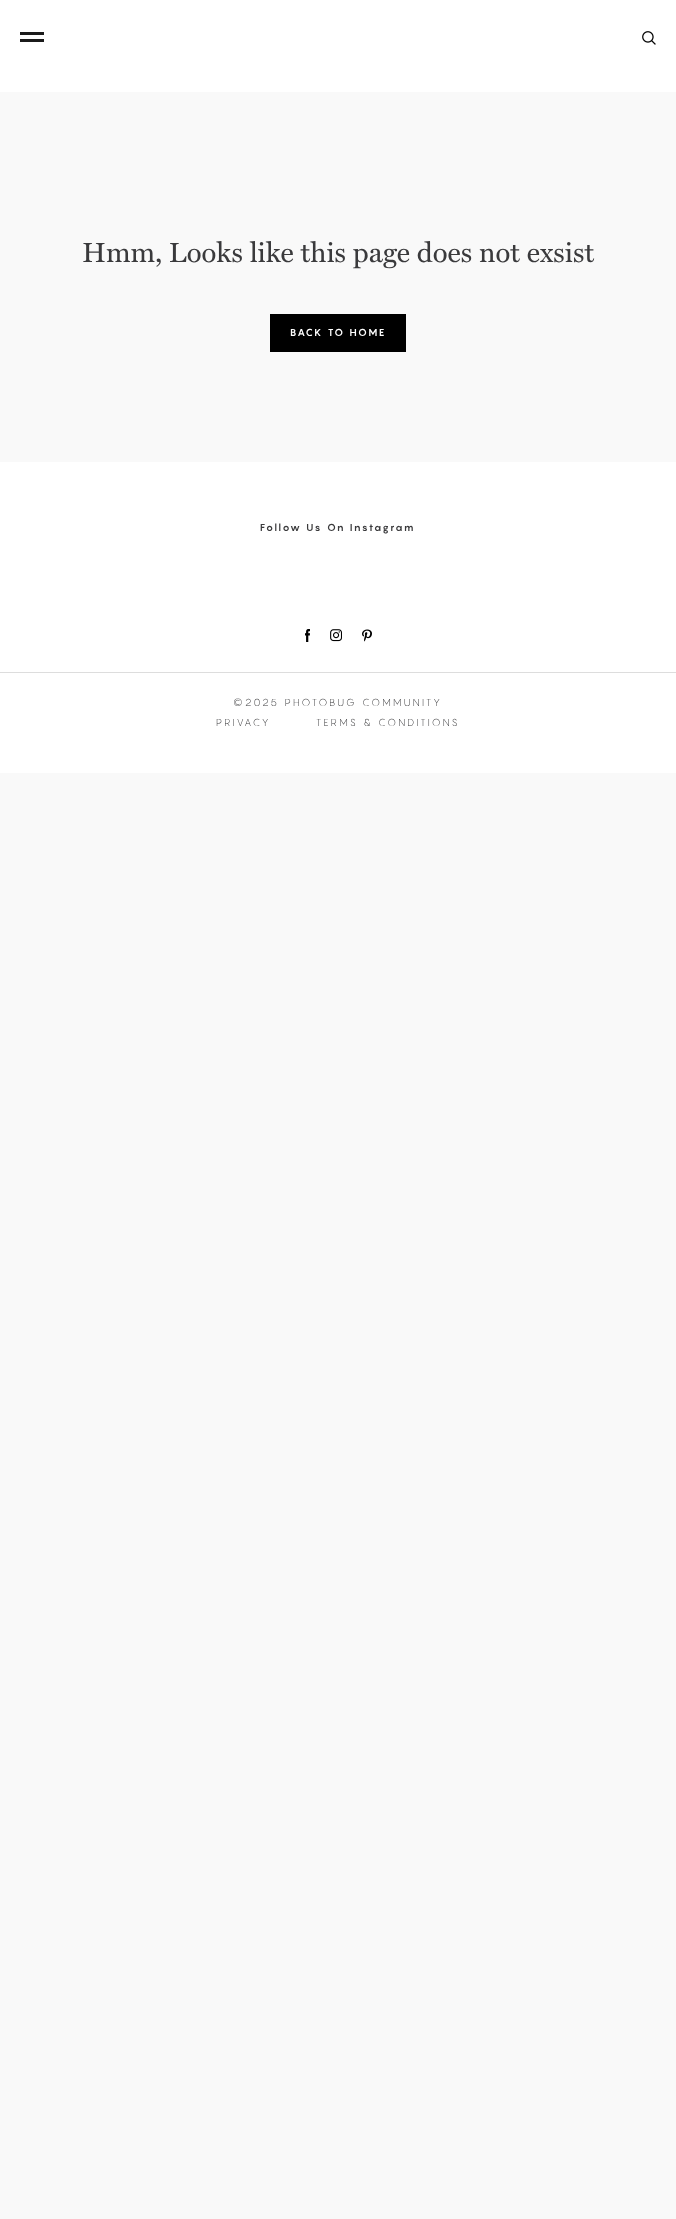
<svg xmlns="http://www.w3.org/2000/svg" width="676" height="2219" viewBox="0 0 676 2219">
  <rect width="100%" height="100%" fill="#f9f9f9"/>
  <path d="M0 0h676v92H0z" fill="#fff"/>
  <path d="M20 32h24v3H20z" fill="#1b1b1b"/>
  <path d="M20 39h24v3H20z" fill="#1b1b1b"/>
  <image x="642" y="31" width="14" height="14" href="img/1.png"/>
  <path d="M270 314h136v38H270z" fill="#000"/>
  <path d="M0 462h676v311H0z" fill="#fff"/>
  <image x="305" y="629" width="5" height="13" href="img/2.png"/>
  <image x="330" y="629" width="12" height="13" href="img/3.png"/>
  <image x="362" y="629" width="10" height="13" href="img/4.png"/>
  <path d="M0 672h676v1H0z" fill="#ddd"/>
  <text x="82" y="262" font-family="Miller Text" font-size="28" font-weight="500" fill="#3a3a3c">Hmm, Looks like this page does not exsist</text>
  <text x="290" y="336" font-family="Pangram" font-size="10" font-weight="bold" letter-spacing="2" fill="#fff">BACK TO HOME</text>
  <text x="260" y="531" font-family="Pangram" font-size="10" font-weight="bold" letter-spacing="2" fill="#3a3a3c">Follow Us On Instagram</text>
  <g font-family="Pangram" font-size="10" font-weight="300" letter-spacing="2.5" fill="#3a3a3c">
    <text x="233" y="706">©2025 PHOTOBUG COMMUNITY</text>
    <text x="216" y="726">PRIVACY</text>
    <text x="316" y="726">TERMS &amp; CONDITIONS</text>
  </g>
</svg>
